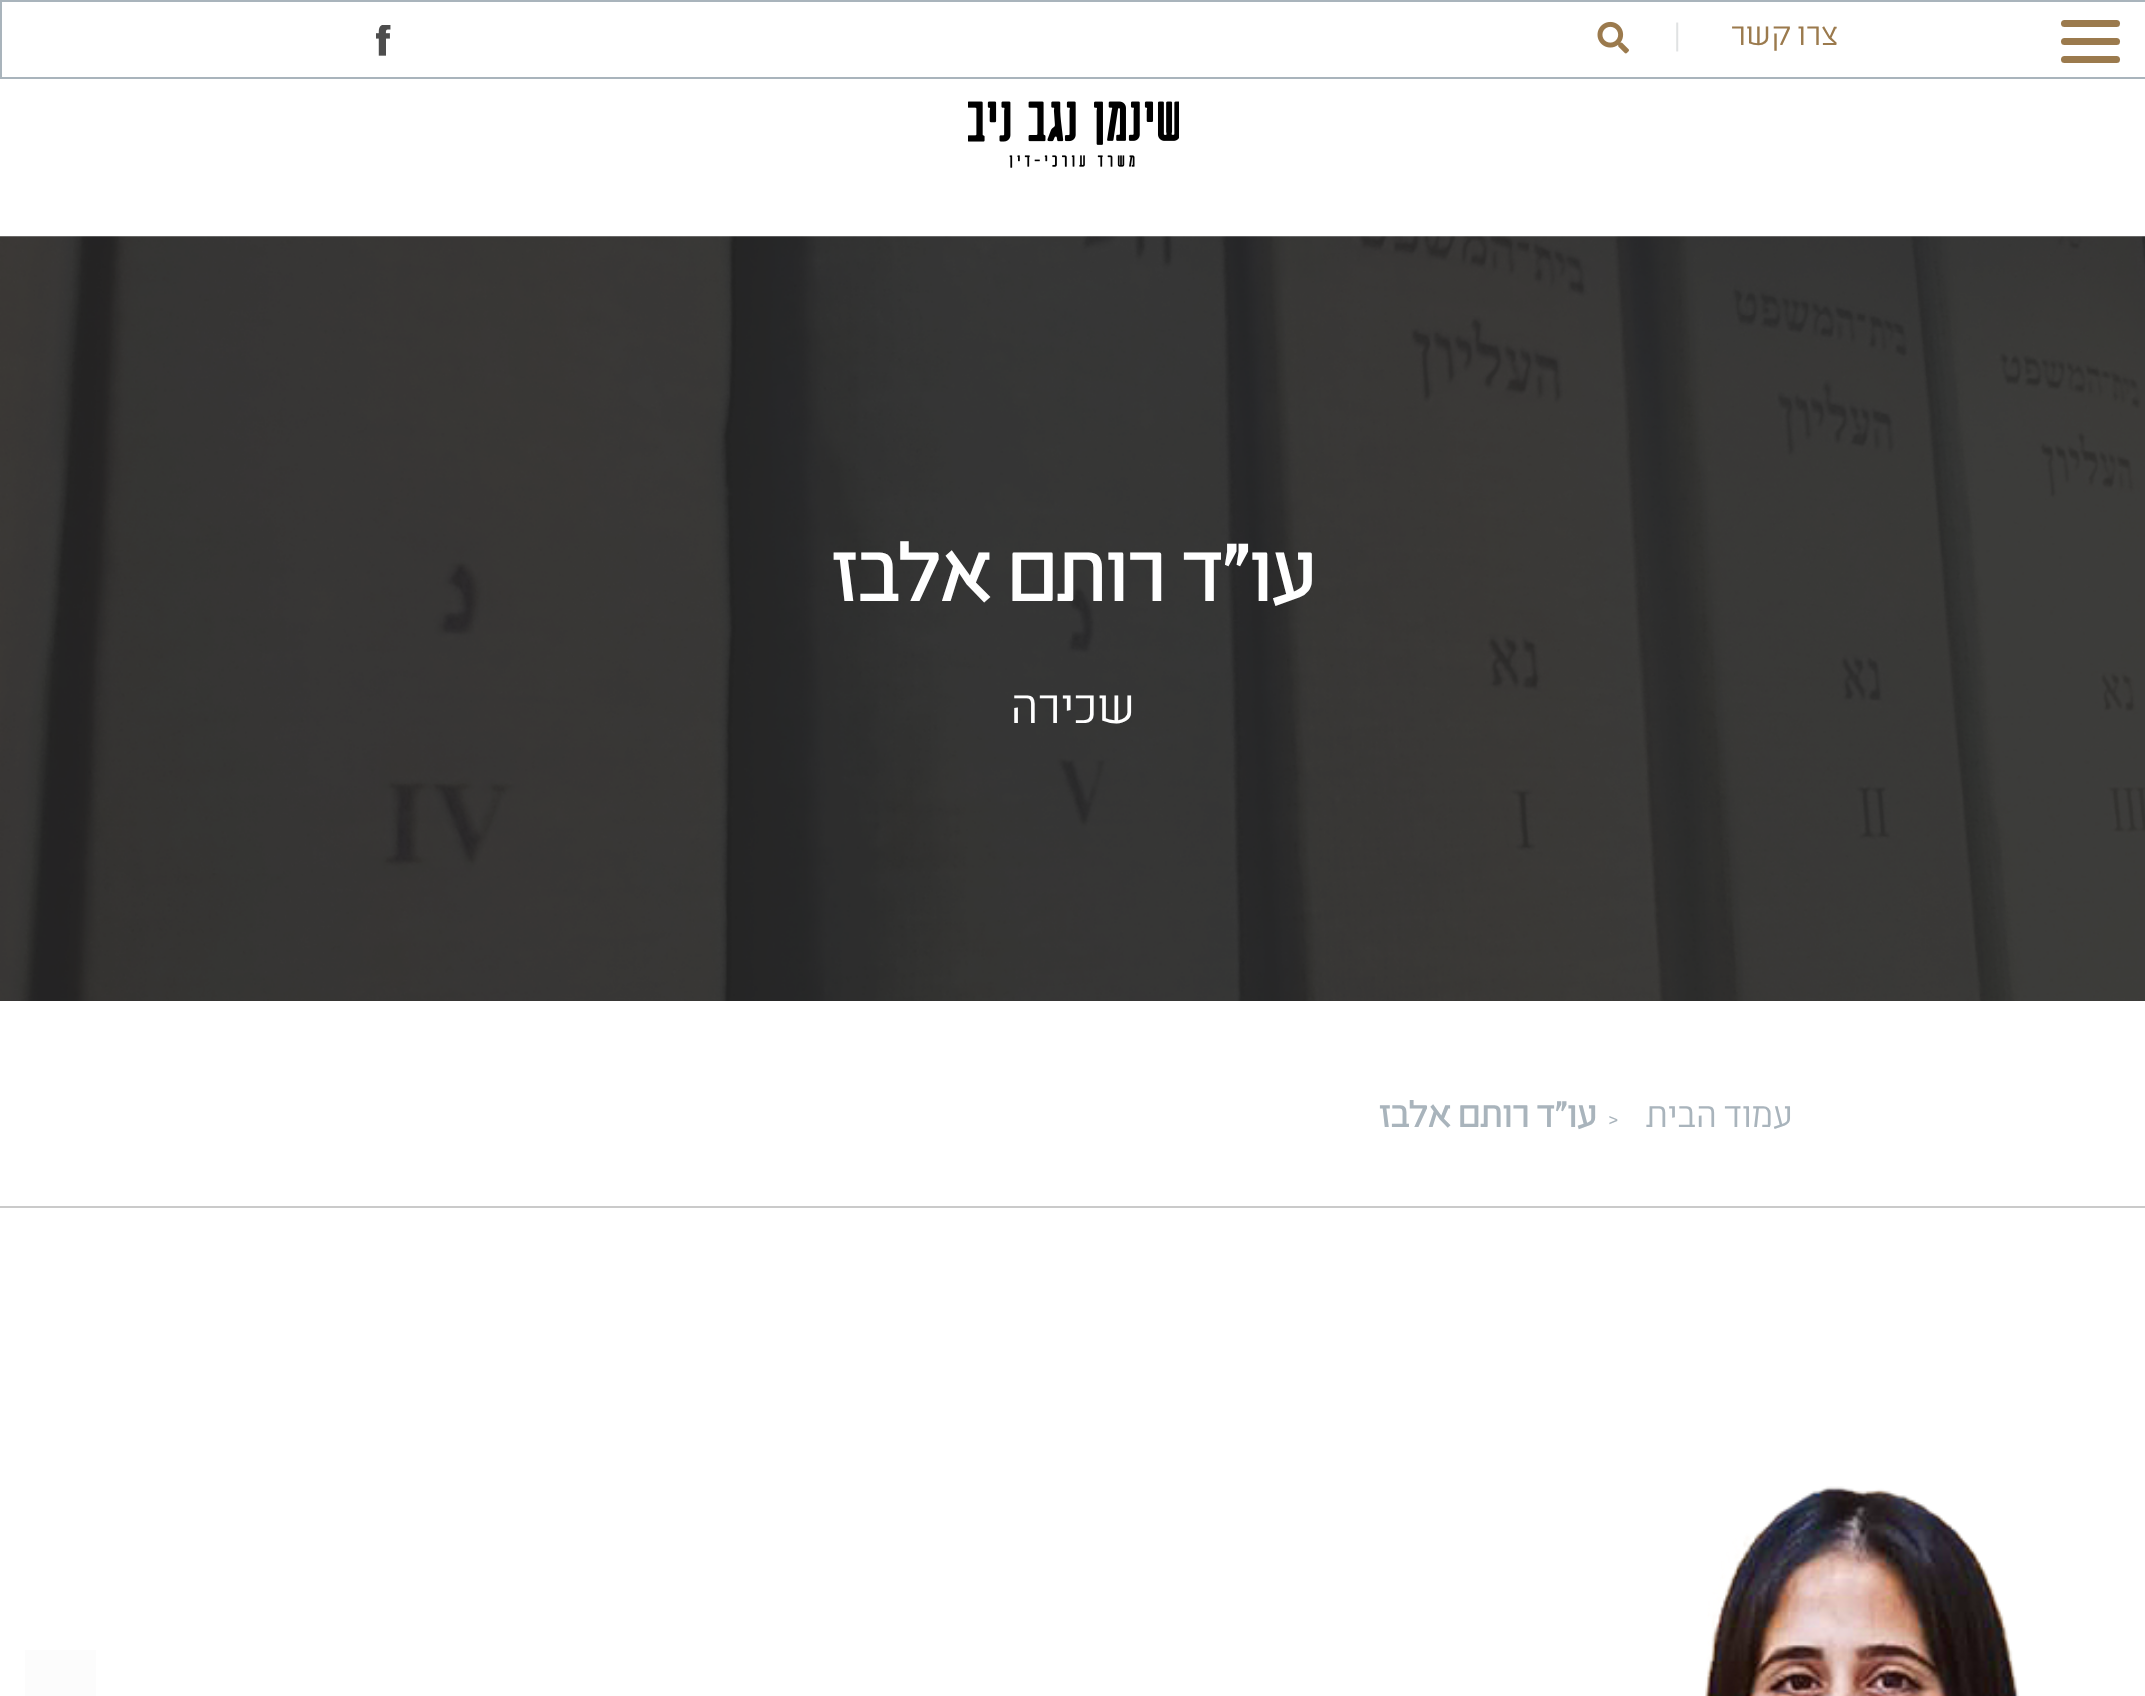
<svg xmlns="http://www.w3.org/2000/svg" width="2145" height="1696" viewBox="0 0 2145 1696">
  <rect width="100%" height="100%" fill="#fff"/>
  <path d="M1 1h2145v77H1z" fill="none" stroke="#a9b4bc" stroke-width="2"/>
  <rect x="2061" y="56" width="59" height="7" rx="3.5" fill="#9b7a4d"/>
  <rect x="2061" y="20" width="59" height="7" rx="3.5" fill="#9b7a4d"/>
  <rect x="2061" y="38" width="59" height="7" rx="3.5" fill="#9b7a4d"/>
  <image x="968" y="101" width="211" height="67" href="img/1.png"/>
  <image x="1597" y="21" width="32" height="33" href="img/2.png"/>
  <image x="376" y="25" width="15" height="31" href="img/3.png"/>
  <image x="0" y="236" width="2145" height="765" href="img/4.png"/>
  <path d="M0 1206h2145v2H0z" fill="#cacaca"/>
  <path d="M25 1650h71v46H25z" fill="#fcfcfc"/>
  <image x="1705" y="1486" width="314" height="210" href="img/5.png"/>
  <text x="1838" y="45" font-family="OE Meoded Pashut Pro" font-size="36" font-weight="300" direction="rtl" fill="#9b7a4d">צרו קשר</text>
  <text x="1674" y="45" font-family="OE Meoded Pashut Pro" font-size="32" font-weight="300" fill="#e0e2e3">|</text>
  <text x="1316" y="601" font-family="OE Meoded Pashut Pro" font-size="90" font-weight="bold" direction="rtl" fill="#fff">עו"ד רותם אלבז</text>
  <text x="1135" y="723" font-family="OE Meoded Pashut Pro" font-size="54" font-weight="300" direction="rtl" fill="#fff">שכירה</text>
  <text x="1793" y="1127" font-family="OE Meoded Pashut Pro" font-size="40.5" font-weight="300" direction="rtl" fill="#a9b4bc">עמוד הבית</text>
  <text x="1608" y="1127" font-family="OE Meoded Pashut Pro" font-size="25" font-weight="300" fill="#a9b4bc">&gt;</text>
  <text x="1597" y="1127" font-family="OE Meoded Pashut Pro" font-size="40.5" font-weight="bold" direction="rtl" fill="#a9b4bc">עו"ד רותם אלבז</text>
</svg>
